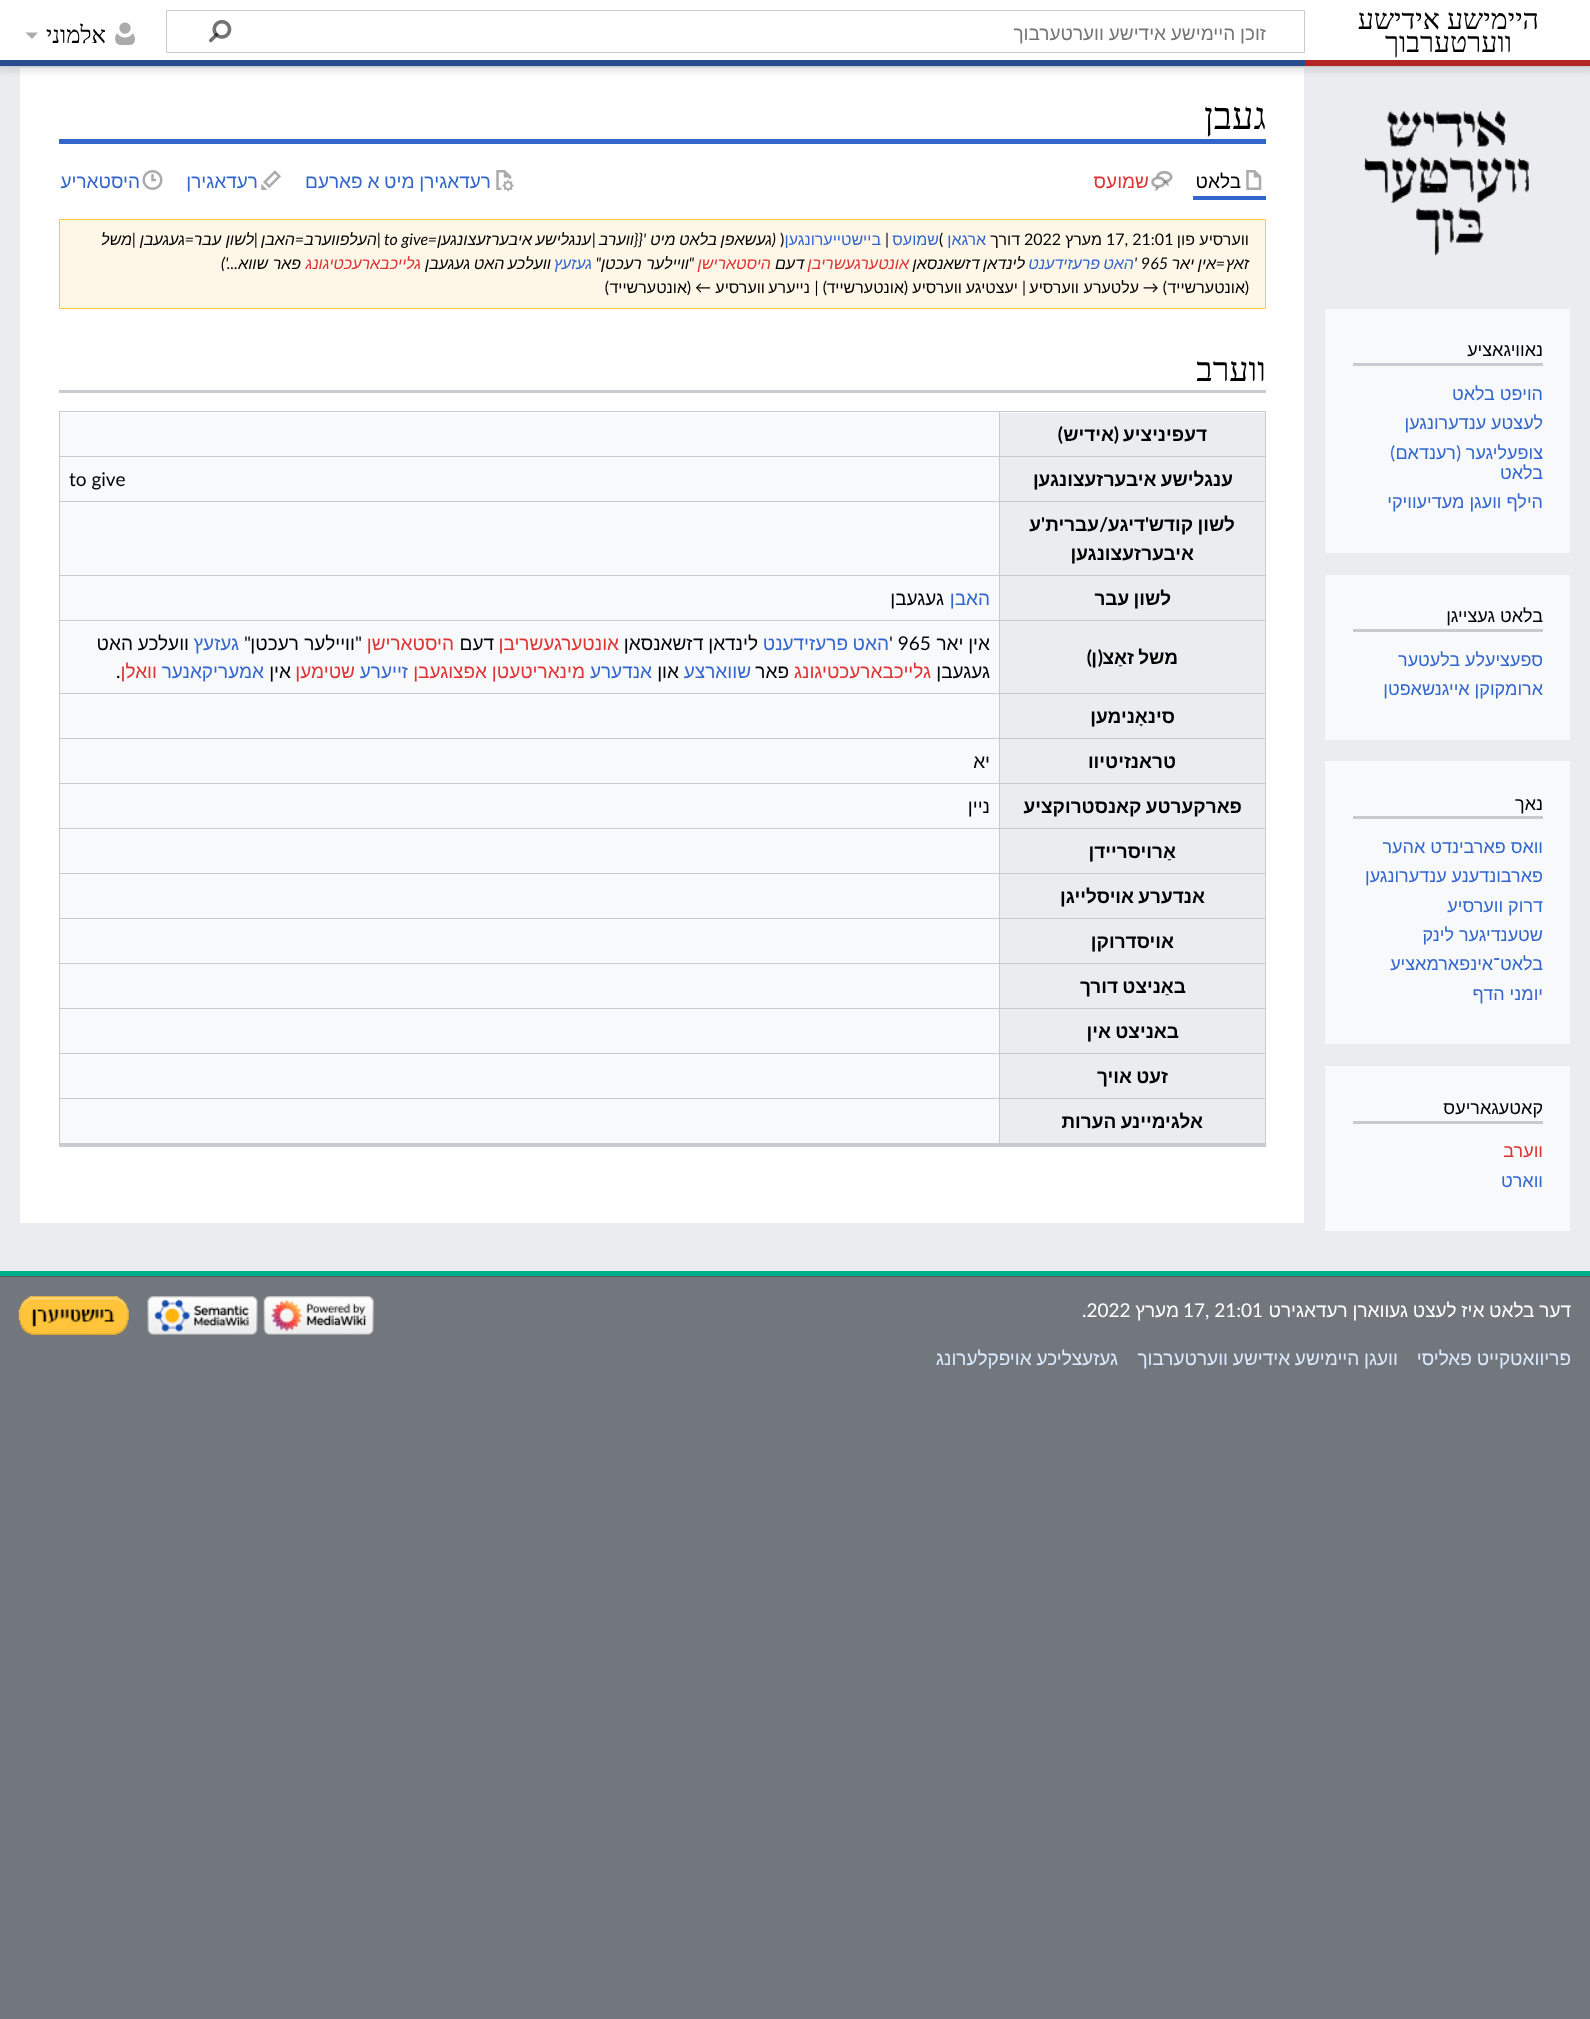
<svg xmlns="http://www.w3.org/2000/svg" width="1590" height="2019" viewBox="0 0 1590 2019">
  <rect width="100%" height="100%" fill="#72777d"/>
  <path d="M0 66h1590v1205H0z" fill="#eaecf0"/>
  <path d="M20 68h1284v1155H20z" fill="#fff"/>
  <path d="M0 60h1590v6H0z" fill="#00000033" filter="blur(1px)"/>
  <path d="M-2 61h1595v12H-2z" fill="#00000012" filter="blur(2px)"/>
  <path d="M0 0h1590v60H0z" fill="#fff"/>
  <path d="M166.5 10.5h1138v42H166.5z" fill="none" stroke="#c8ccd1"/>
  <image x="209" y="20" width="23" height="23" href="img/1.png"/>
  <image x="209" y="20" width="23" height="23" href="img/2.png"/>
  <image x="115" y="22" width="20" height="23" href="img/3.png"/>
  <path d="M38 32.5L32 39L25.5 32.5Z" fill="#ababab"/>
  <path d="M1305 60h285v6H1305z" fill="#b32424"/>
  <path d="M0 60h1305v6H0z" fill="#2a4b8d"/>
  <path d="M0 1271h1590v5H0z" fill="#00af89"/>
  <image x="1363" y="111" width="166" height="145" href="img/4.png"/>
  <path d="M1325 309h245v244H1325z" fill="#f8f9fa"/>
  <path d="M1353 363h190v3H1353z" fill="#c8ccd1"/>
  <path d="M1325 575h245v165H1325z" fill="#f8f9fa"/>
  <path d="M1353 629h190v3H1353z" fill="#c8ccd1"/>
  <path d="M59 139h1207v5H59z" fill="#36c"/>
  <path d="M1193 196h73v4H1193z" fill="#36c"/>
  <image x="1246" y="170" width="16" height="20" href="img/5.png"/>
  <image x="1151" y="170" width="22" height="22" href="img/6.png"/>
  <image x="496" y="170" width="18" height="22" href="img/7.png"/>
  <image x="261" y="170" width="20" height="20" href="img/8.png"/>
  <image x="142" y="170" width="21" height="20" href="img/9.png"/>
  <path d="M59.5 219.5h1206v89H59.5z" fill="#fef6e7" stroke="#fc3"/>
  <path d="M59 390h1207v3H59z" fill="#c8ccd1"/>
  <path d="M60 413h939v730H60z" fill="#f8f9fa"/>
  <path d="M59 411h1207v1H59z" fill="#c8ccd1"/>
  <path d="M1265 411h1v735H1265z" fill="#c8ccd1"/>
  <path d="M59 411h1v735H59z" fill="#c8ccd1"/>
  <path d="M59 1098h941v1H59z" fill="#c8ccd1"/>
  <path d="M999 1098h1v47H999z" fill="#c8ccd1"/>
  <path d="M59 1143h1207v4H59z" fill="#c8ccd1"/>
  <path d="M1000 413h265v88H1000z" fill="#eaecf0"/>
  <path d="M59 456h941v1H59z" fill="#c8ccd1"/>
  <path d="M59 501h941v1H59z" fill="#c8ccd1"/>
  <path d="M59 575h941v1H59z" fill="#c8ccd1"/>
  <path d="M59 620h941v1H59z" fill="#c8ccd1"/>
  <path d="M59 693h941v1H59z" fill="#c8ccd1"/>
  <path d="M59 738h941v1H59z" fill="#c8ccd1"/>
  <path d="M59 783h941v1H59z" fill="#c8ccd1"/>
  <path d="M59 828h941v1H59z" fill="#c8ccd1"/>
  <path d="M59 873h941v1H59z" fill="#c8ccd1"/>
  <path d="M59 918h941v1H59z" fill="#c8ccd1"/>
  <path d="M59 963h941v1H59z" fill="#c8ccd1"/>
  <path d="M59 1008h941v1H59z" fill="#c8ccd1"/>
  <path d="M59 1053h941v1H59z" fill="#c8ccd1"/>
  <path d="M999 1098h267v1H999z" fill="#c8ccd1"/>
  <path d="M999 1053h1v46H999z" fill="#c8ccd1"/>
  <path d="M999 1053h267v1H999z" fill="#c8ccd1"/>
  <path d="M999 1008h1v46H999z" fill="#c8ccd1"/>
  <path d="M999 1008h267v1H999z" fill="#c8ccd1"/>
  <path d="M999 963h1v46H999z" fill="#c8ccd1"/>
  <path d="M999 963h267v1H999z" fill="#c8ccd1"/>
  <path d="M999 918h1v46H999z" fill="#c8ccd1"/>
  <path d="M999 918h267v1H999z" fill="#c8ccd1"/>
  <path d="M999 873h1v46H999z" fill="#c8ccd1"/>
  <path d="M999 873h267v1H999z" fill="#c8ccd1"/>
  <path d="M999 828h1v46H999z" fill="#c8ccd1"/>
  <path d="M999 828h267v1H999z" fill="#c8ccd1"/>
  <path d="M999 783h1v46H999z" fill="#c8ccd1"/>
  <path d="M999 783h267v1H999z" fill="#c8ccd1"/>
  <path d="M999 738h1v46H999z" fill="#c8ccd1"/>
  <path d="M999 738h267v1H999z" fill="#c8ccd1"/>
  <path d="M999 693h1v46H999z" fill="#c8ccd1"/>
  <path d="M999 693h267v1H999z" fill="#c8ccd1"/>
  <path d="M999 620h1v74H999z" fill="#c8ccd1"/>
  <path d="M999 620h267v1H999z" fill="#c8ccd1"/>
  <path d="M999 575h1v46H999z" fill="#c8ccd1"/>
  <path d="M999 575h267v1H999z" fill="#c8ccd1"/>
  <path d="M999 501h1v75H999z" fill="#c8ccd1"/>
  <path d="M999 501h267v1H999z" fill="#c8ccd1"/>
  <path d="M999 456h1v47H999z" fill="#c8ccd1"/>
  <path d="M999 456h267v1H999z" fill="#c8ccd1"/>
  <path d="M999 411h1v47H999z" fill="#c8ccd1"/>
  <path d="M1000 502h265v73H1000z" fill="#eaecf0"/>
  <path d="M1000 576h265v44H1000z" fill="#eaecf0"/>
  <path d="M1000 621h265v72H1000z" fill="#eaecf0"/>
  <path d="M1000 694h265v44H1000z" fill="#eaecf0"/>
  <path d="M1000 739h265v44H1000z" fill="#eaecf0"/>
  <path d="M1000 784h265v44H1000z" fill="#eaecf0"/>
  <path d="M1000 829h265v44H1000z" fill="#eaecf0"/>
  <path d="M1000 874h265v44H1000z" fill="#eaecf0"/>
  <path d="M1000 919h265v44H1000z" fill="#eaecf0"/>
  <path d="M1000 964h265v44H1000z" fill="#eaecf0"/>
  <path d="M1000 1009h265v44H1000z" fill="#eaecf0"/>
  <path d="M1000 1054h265v44H1000z" fill="#eaecf0"/>
  <path d="M1000 1099h265v44H1000z" fill="#eaecf0"/>
  <path d="M1325 761h245v283H1325z" fill="#f8f9fa"/>
  <path d="M1353 816h190v3H1353z" fill="#c8ccd1"/>
  <path d="M1325 1066h245v165H1325z" fill="#f8f9fa"/>
  <path d="M1353 1121h190v3H1353z" fill="#c8ccd1"/>
  <path d="M0 1276h1590v1H0z" fill="#54595d"/>
  <image x="263" y="1296" width="111" height="39" href="img/10.png"/>
  <image x="147" y="1296" width="111" height="39" href="img/11.png"/>
  <image x="18" y="1296" width="111" height="39" href="img/12.png"/>
  <g font-family="Liberation Serif" font-size="28.5" direction="rtl" fill="#000">
    <text x="1539" y="29">היימישע אידישע</text>
    <text x="1512" y="52">ווערטערבוך</text>
  </g>
  <text x="1266" y="40" word-spacing="-0.5" font-family="Liberation Sans" font-size="19" direction="rtl" fill="#757575">זוכן היימישע אידישע ווערטערבוך</text>
  <text x="106" y="43" font-family="Liberation Serif" font-size="24" direction="rtl" fill="#000">אלמוני</text>
  <text x="1543" y="356" font-family="Liberation Sans" font-size="18" direction="rtl" fill="#000">נאוויגאציע</text>
  <g font-family="Liberation Sans" font-size="18" direction="rtl" fill="#36c">
    <text x="1543" y="400">הויפט בלאט</text>
    <text x="1543" y="429">לעצטע ענדערונגען</text>
    <text x="1543" y="459">צופעליגער</text>
  </g>
  <text x="1461" y="459" font-family="Lato" font-size="18" direction="rtl" fill="#36c">(</text>
  <text x="1456" y="459" font-family="Liberation Sans" font-size="18" direction="rtl" fill="#36c">רענדאם</text>
  <text x="1395" y="459" font-family="Lato" font-size="18" direction="rtl" fill="#36c">)</text>
  <g font-family="Liberation Sans" font-size="18" direction="rtl" fill="#36c">
    <text x="1543" y="479">בלאט</text>
    <text x="1543" y="508">הילף וועגן מעדיעוויקי</text>
  </g>
  <text x="1543" y="622" font-family="Liberation Sans" font-size="18" direction="rtl" fill="#000">בלאט געצייגן</text>
  <g font-family="Liberation Sans" font-size="18" direction="rtl" fill="#36c">
    <text x="1543" y="666">ספעציעלע בלעטער</text>
    <text x="1543" y="695">ארומקוקן אייגנשאפטן</text>
  </g>
  <text x="1266" y="129" font-family="Liberation Serif" font-size="38" direction="rtl" fill="#000">געבן</text>
  <text x="1241" y="188" font-family="Liberation Sans" font-size="19" direction="rtl" fill="#000">בלאט</text>
  <text x="1149" y="188" font-family="Liberation Sans" font-size="19" direction="rtl" fill="#d33">שמועס</text>
  <g font-family="Liberation Sans" font-size="19" direction="rtl" fill="#36c">
    <text x="491" y="188" word-spacing="-0.5">רעדאגירן מיט א פארעם</text>
    <text x="258" y="188">רעדאגירן</text>
    <text x="140" y="188">היסטאריע</text>
  </g>
  <text x="1249" y="245" font-family="Liberation Sans" font-size="16" direction="rtl" fill="#000">ווערסיע פון</text>
  <text x="1106" y="245" font-family="Lato" font-size="16" fill="#000">17, 21:01</text>
  <text x="1102" y="245" font-family="Liberation Sans" font-size="16" direction="rtl" fill="#000">מערץ</text>
  <text x="1024" y="245" font-family="Lato" font-size="16" fill="#000">2022</text>
  <text x="1020" y="245" font-family="Liberation Sans" font-size="16" direction="rtl" fill="#000">דורך</text>
  <text x="986" y="245" font-family="Liberation Sans" font-size="16" direction="rtl" fill="#36c">ארגאן</text>
  <text x="939" y="245" font-family="Lato" font-size="16" fill="#000">(</text>
  <text x="939" y="245" font-family="Liberation Sans" font-size="16" direction="rtl" fill="#36c">שמועס</text>
  <text x="885" y="245" font-family="Lato" font-size="16" fill="#000">|</text>
  <text x="881" y="245" font-family="Liberation Sans" font-size="16" direction="rtl" fill="#36c">ביישטייערונגען</text>
  <text x="780" y="245" font-family="Lato" font-size="16" fill="#000">)</text>
  <text x="776" y="245" font-family="Lato" font-size="16" font-style="italic" direction="rtl" fill="#000">(</text>
  <text x="772" y="245" word-spacing="-1" font-family="Liberation Sans" font-size="16" font-style="italic" direction="rtl" fill="#000">געשאפן בלאט מיט</text>
  <text x="646" y="245" font-family="Lato" font-size="16" font-style="italic" direction="rtl" fill="#000">'{{</text>
  <text x="634" y="245" font-family="Liberation Sans" font-size="16" font-style="italic" direction="rtl" fill="#000">ווערב</text>
  <text x="596" y="245" font-family="Lato" font-size="16" font-style="italic" direction="rtl" fill="#000">|</text>
  <text x="591" y="245" word-spacing="-1" font-family="Liberation Sans" font-size="16" font-style="italic" direction="rtl" fill="#000">ענגלישע איבערזעצונגען</text>
  <text x="437" y="245" font-family="Lato" font-size="16" font-style="italic" direction="rtl" fill="#000">=</text>
  <text x="384" y="245" font-family="Lato" font-size="16" font-style="italic" fill="#000">to give</text>
  <text x="381" y="245" font-family="Lato" font-size="16" font-style="italic" direction="rtl" fill="#000">|</text>
  <text x="377" y="245" font-family="Liberation Sans" font-size="16" font-style="italic" direction="rtl" fill="#000">העלפווערב</text>
  <text x="304" y="245" font-family="Lato" font-size="16" font-style="italic" direction="rtl" fill="#000">=</text>
  <text x="295" y="245" font-family="Liberation Sans" font-size="16" font-style="italic" direction="rtl" fill="#000">האבן</text>
  <text x="258" y="245" font-family="Lato" font-size="16" font-style="italic" direction="rtl" fill="#000">|</text>
  <text x="254" y="245" font-family="Liberation Sans" font-size="16" font-style="italic" direction="rtl" fill="#000">לשון עבר</text>
  <text x="194" y="245" font-family="Lato" font-size="16" font-style="italic" direction="rtl" fill="#000">=</text>
  <text x="185" y="245" font-family="Liberation Sans" font-size="16" font-style="italic" direction="rtl" fill="#000">געגעבן</text>
  <text x="136" y="245" font-family="Lato" font-size="16" font-style="italic" direction="rtl" fill="#000">|</text>
  <g font-family="Liberation Sans" font-size="16" font-style="italic" direction="rtl" fill="#000">
    <text x="132" y="245">משל</text>
    <text x="1249" y="269">זאץ</text>
  </g>
  <text x="1225" y="269" font-family="Lato" font-size="16" font-style="italic" direction="rtl" fill="#000">=</text>
  <text x="1216" y="269" word-spacing="-1" font-family="Liberation Sans" font-size="16" font-style="italic" direction="rtl" fill="#000">אין יאר</text>
  <text x="1134" y="269" font-family="Lato" font-size="16" font-style="italic" fill="#000">' 965</text>
  <g font-family="Liberation Sans" font-size="16" font-style="italic" direction="rtl" fill="#36c">
    <text x="1134" y="269">האט</text>
    <text x="1100" y="269">פרעזידענט</text>
  </g>
  <text x="1025" y="269" word-spacing="-1" font-family="Liberation Sans" font-size="16" font-style="italic" direction="rtl" fill="#000">לינדאן דזשאנסאן</text>
  <text x="909" y="269" font-family="Liberation Sans" font-size="16" font-style="italic" direction="rtl" fill="#d33">אונטערגעשריבן</text>
  <text x="804" y="269" font-family="Liberation Sans" font-size="16" font-style="italic" direction="rtl" fill="#000">דעם</text>
  <text x="771" y="269" font-family="Liberation Sans" font-size="16" font-style="italic" direction="rtl" fill="#d33">היסטארישן</text>
  <text x="694" y="269" font-family="Lato" font-size="16" font-style="italic" direction="rtl" fill="#000">"</text>
  <text x="689" y="269" font-family="Liberation Sans" font-size="16" font-style="italic" direction="rtl" fill="#000">וויילער רעכטן</text>
  <text x="601" y="269" font-family="Lato" font-size="16" font-style="italic" direction="rtl" fill="#000">"</text>
  <text x="592" y="269" font-family="Liberation Sans" font-size="16" font-style="italic" direction="rtl" fill="#36c">געזעץ</text>
  <text x="551" y="269" word-spacing="-1" font-family="Liberation Sans" font-size="16" font-style="italic" direction="rtl" fill="#000">וועלכע האט געגעבן</text>
  <text x="421" y="269" font-family="Liberation Sans" font-size="16" font-style="italic" direction="rtl" fill="#d33">גלייכבארעכטיגונג</text>
  <text x="301" y="269" font-family="Liberation Sans" font-size="16" font-style="italic" direction="rtl" fill="#000">פאר שווא</text>
  <text x="238" y="269" font-family="Lato" font-size="16" font-style="italic" direction="rtl" fill="#000">...')</text>
  <text x="1249" y="293" font-family="Lato" font-size="16" direction="rtl" fill="#000">(</text>
  <text x="1245" y="293" font-family="Liberation Sans" font-size="16" direction="rtl" fill="#000">אונטערשייד</text>
  <text x="1167" y="293" font-family="Lato" font-size="16" direction="rtl" fill="#000">) →</text>
  <g font-family="Liberation Sans" font-size="16" direction="rtl" fill="#000">
    <text x="1139" y="293">עלטערע</text>
    <text x="1079" y="293">ווערסיע</text>
  </g>
  <text x="1026" y="293" font-family="Lato" font-size="16" direction="rtl" fill="#000">|</text>
  <g font-family="Liberation Sans" font-size="16" direction="rtl" fill="#000">
    <text x="1018" y="293">יעצטיגע</text>
    <text x="962" y="293">ווערסיע</text>
  </g>
  <text x="908" y="293" font-family="Lato" font-size="16" direction="rtl" fill="#000">(</text>
  <text x="904" y="293" font-family="Liberation Sans" font-size="16" direction="rtl" fill="#000">אונטערשייד</text>
  <text x="827" y="293" font-family="Lato" font-size="16" direction="rtl" fill="#000">) |</text>
  <g font-family="Liberation Sans" font-size="16" direction="rtl" fill="#000">
    <text x="810" y="293">נייערע</text>
    <text x="765" y="293">ווערסיע</text>
  </g>
  <text x="711" y="293" font-family="Lato" font-size="16" direction="rtl" fill="#000">← (</text>
  <text x="687" y="293" font-family="Liberation Sans" font-size="16" direction="rtl" fill="#000">אונטערשייד</text>
  <text x="609" y="293" font-family="Lato" font-size="16" direction="rtl" fill="#000">)</text>
  <text x="1266" y="381" font-family="Liberation Serif" font-size="34" direction="rtl" fill="#000">ווערב</text>
  <text x="1207" y="441" font-family="Liberation Sans" font-size="19" font-weight="bold" direction="rtl" fill="#000">דעפיניציע</text>
  <text x="1119" y="441" font-family="Lato" font-size="19" font-weight="bold" direction="rtl" fill="#000">(</text>
  <text x="1114" y="441" font-family="Liberation Sans" font-size="19" font-weight="bold" direction="rtl" fill="#000">אידיש</text>
  <text x="1063" y="441" font-family="Lato" font-size="19" font-weight="bold" direction="rtl" fill="#000">)</text>
  <text x="1233" y="486" word-spacing="-1" font-family="Liberation Sans" font-size="19" font-weight="bold" direction="rtl" fill="#000">ענגלישע איבערזעצונגען</text>
  <text x="69" y="486" font-family="Lato" font-size="19" fill="#000">to give</text>
  <text x="1235" y="531" word-spacing="-1" font-family="Liberation Sans" font-size="19" font-weight="bold" direction="rtl" fill="#000">לשון קודש</text>
  <text x="1149" y="531" font-family="Lato" font-size="19" font-weight="bold" direction="rtl" fill="#000">'</text>
  <text x="1145" y="531" font-family="Liberation Sans" font-size="19" font-weight="bold" direction="rtl" fill="#000">דיגע</text>
  <text x="1108" y="531" font-family="Lato" font-size="19" font-weight="bold" direction="rtl" fill="#000">/</text>
  <text x="1099" y="531" font-family="Liberation Sans" font-size="19" font-weight="bold" direction="rtl" fill="#000">עברית</text>
  <text x="1045" y="531" font-family="Lato" font-size="19" font-weight="bold" direction="rtl" fill="#000">'</text>
  <g font-family="Liberation Sans" font-size="19" font-weight="bold" direction="rtl" fill="#000">
    <text x="1041" y="531">ע</text>
    <text x="1194" y="560">איבערזעצונגען</text>
    <text x="1171" y="605" word-spacing="-1">לשון עבר</text>
  </g>
  <text x="990" y="605" font-family="Liberation Sans" font-size="19" direction="rtl" fill="#36c">האבן</text>
  <text x="944" y="605" font-family="Liberation Sans" font-size="19" direction="rtl" fill="#000">געגעבן</text>
  <text x="1103" y="664" font-family="Lato" font-size="19" font-weight="bold" direction="rtl" fill="#000">(</text>
  <g font-family="Liberation Sans" font-size="19" font-weight="bold" direction="rtl" fill="#000">
    <text x="1178" y="664" word-spacing="-1">משל זאַצ</text>
    <text x="1097" y="664">ן</text>
  </g>
  <text x="1092" y="664" font-family="Lato" font-size="19" font-weight="bold" direction="rtl" fill="#000">)</text>
  <text x="990" y="650" word-spacing="-0.5" font-family="Liberation Sans" font-size="19" direction="rtl" fill="#000">אין יאר</text>
  <text x="889" y="650" font-family="Lato" font-size="19" fill="#000">' 965</text>
  <g font-family="Liberation Sans" font-size="19" direction="rtl" fill="#36c">
    <text x="889" y="650">האט</text>
    <text x="848" y="650">פרעזידענט</text>
  </g>
  <text x="758" y="650" word-spacing="-0.5" font-family="Liberation Sans" font-size="19" direction="rtl" fill="#000">לינדאן דזשאנסאן</text>
  <text x="619" y="650" font-family="Liberation Sans" font-size="19" direction="rtl" fill="#d33">אונטערגעשריבן</text>
  <text x="494" y="650" font-family="Liberation Sans" font-size="19" direction="rtl" fill="#000">דעם</text>
  <text x="454" y="650" font-family="Liberation Sans" font-size="19" direction="rtl" fill="#d33">היסטארישן</text>
  <text x="362" y="650" font-family="Lato" font-size="19" direction="rtl" fill="#000">"</text>
  <text x="355" y="650" font-family="Liberation Sans" font-size="19" direction="rtl" fill="#000">וויילער רעכטן</text>
  <text x="251" y="650" font-family="Lato" font-size="19" direction="rtl" fill="#000">"</text>
  <text x="239" y="650" font-family="Liberation Sans" font-size="19" direction="rtl" fill="#36c">געזעץ</text>
  <g font-family="Liberation Sans" font-size="19" direction="rtl" fill="#000">
    <text x="189" y="650" word-spacing="-0.5">וועלכע האט</text>
    <text x="990" y="678">געגעבן</text>
  </g>
  <text x="931" y="678" font-family="Liberation Sans" font-size="19" direction="rtl" fill="#d33">גלייכבארעכטיגונג</text>
  <text x="789" y="678" font-family="Liberation Sans" font-size="19" direction="rtl" fill="#000">פאר</text>
  <text x="751" y="678" font-family="Liberation Sans" font-size="19" direction="rtl" fill="#36c">שווארצע</text>
  <text x="679" y="678" font-family="Liberation Sans" font-size="19" direction="rtl" fill="#000">און</text>
  <text x="652" y="678" font-family="Liberation Sans" font-size="19" direction="rtl" fill="#36c">אנדערע</text>
  <g font-family="Liberation Sans" font-size="19" direction="rtl" fill="#d33">
    <text x="585" y="678">מינאריטעטן</text>
    <text x="487" y="678">אפצוגעבן</text>
  </g>
  <text x="408" y="678" font-family="Liberation Sans" font-size="19" direction="rtl" fill="#36c">זייערע</text>
  <text x="355" y="678" font-family="Liberation Sans" font-size="19" direction="rtl" fill="#d33">שטימען</text>
  <text x="291" y="678" font-family="Liberation Sans" font-size="19" direction="rtl" fill="#000">אין</text>
  <text x="264" y="678" font-family="Liberation Sans" font-size="19" direction="rtl" fill="#36c">אמעריקאנער</text>
  <text x="157" y="678" font-family="Liberation Sans" font-size="19" direction="rtl" fill="#d33">וואלן</text>
  <text x="116" y="678" font-family="Lato" font-size="19" fill="#000">.</text>
  <g font-family="Liberation Sans" font-size="19" font-weight="bold" direction="rtl" fill="#000">
    <text x="1175" y="723">סינאָנימען</text>
    <text x="1176" y="768">טראנזיטיוו</text>
  </g>
  <text x="990" y="768" font-family="Liberation Sans" font-size="19" direction="rtl" fill="#000">יא</text>
  <text x="1242" y="813" word-spacing="-1" font-family="Liberation Sans" font-size="19" font-weight="bold" direction="rtl" fill="#000">פארקערטע קאנסטרוקציע</text>
  <text x="990" y="813" font-family="Liberation Sans" font-size="19" direction="rtl" fill="#000">ניין</text>
  <g font-family="Liberation Sans" font-size="19" font-weight="bold" direction="rtl" fill="#000">
    <text x="1176" y="858">אַרויסריידן</text>
    <text x="1205" y="903" word-spacing="-1">אנדערע אויסלייגן</text>
    <text x="1174" y="948">אויסדרוקן</text>
    <text x="1186" y="993" word-spacing="-1">באַניצט דורך</text>
    <text x="1179" y="1038" word-spacing="-1">באניצט אין</text>
    <text x="1168" y="1083" word-spacing="-1">זעט אויך</text>
    <text x="1203" y="1128" word-spacing="-1">אלגימיינע הערות</text>
  </g>
  <text x="1543" y="810" font-family="Liberation Sans" font-size="18" direction="rtl" fill="#000">נאך</text>
  <g font-family="Liberation Sans" font-size="18" direction="rtl" fill="#36c">
    <text x="1543" y="853">װאס פארבינדט אהער</text>
    <text x="1543" y="882">פארבונדענע ענדערונגען</text>
    <text x="1543" y="912">דרוק ווערסיע</text>
    <text x="1543" y="941">שטענדיגער לינק</text>
    <text x="1543" y="970">בלאט־אינפארמאציע</text>
    <text x="1543" y="1000">יומני הדף</text>
  </g>
  <text x="1543" y="1114" font-family="Liberation Sans" font-size="18" direction="rtl" fill="#000">קאטעגאריעס</text>
  <text x="1543" y="1157" font-family="Liberation Sans" font-size="18" direction="rtl" fill="#d33">ווערב</text>
  <text x="1543" y="1187" font-family="Liberation Sans" font-size="18" direction="rtl" fill="#36c">ווארט</text>
  <text x="1571" y="1317" word-spacing="-0.5" font-family="Liberation Sans" font-size="19" direction="rtl" fill="#fff">דער בלאט איז לעצט געווארן רעדאגירט</text>
  <text x="1183" y="1317" font-family="Lato" font-size="19" fill="#fff">17, 21:01</text>
  <text x="1179" y="1317" font-family="Liberation Sans" font-size="19" direction="rtl" fill="#fff">מערץ</text>
  <text x="1082" y="1317" font-family="Lato" font-size="19" fill="#fff">.2022</text>
  <g font-family="Liberation Sans" font-size="19" direction="rtl" fill="#dbeaff">
    <text x="1571" y="1365" word-spacing="-0.5">פריוואטקייט פאליסי</text>
    <text x="1398" y="1365" word-spacing="-0.5">וועגן היימישע אידישע ווערטערבוך</text>
    <text x="1118" y="1365" word-spacing="-0.5">געזעצליכע אויפקלערונג</text>
  </g>
</svg>
